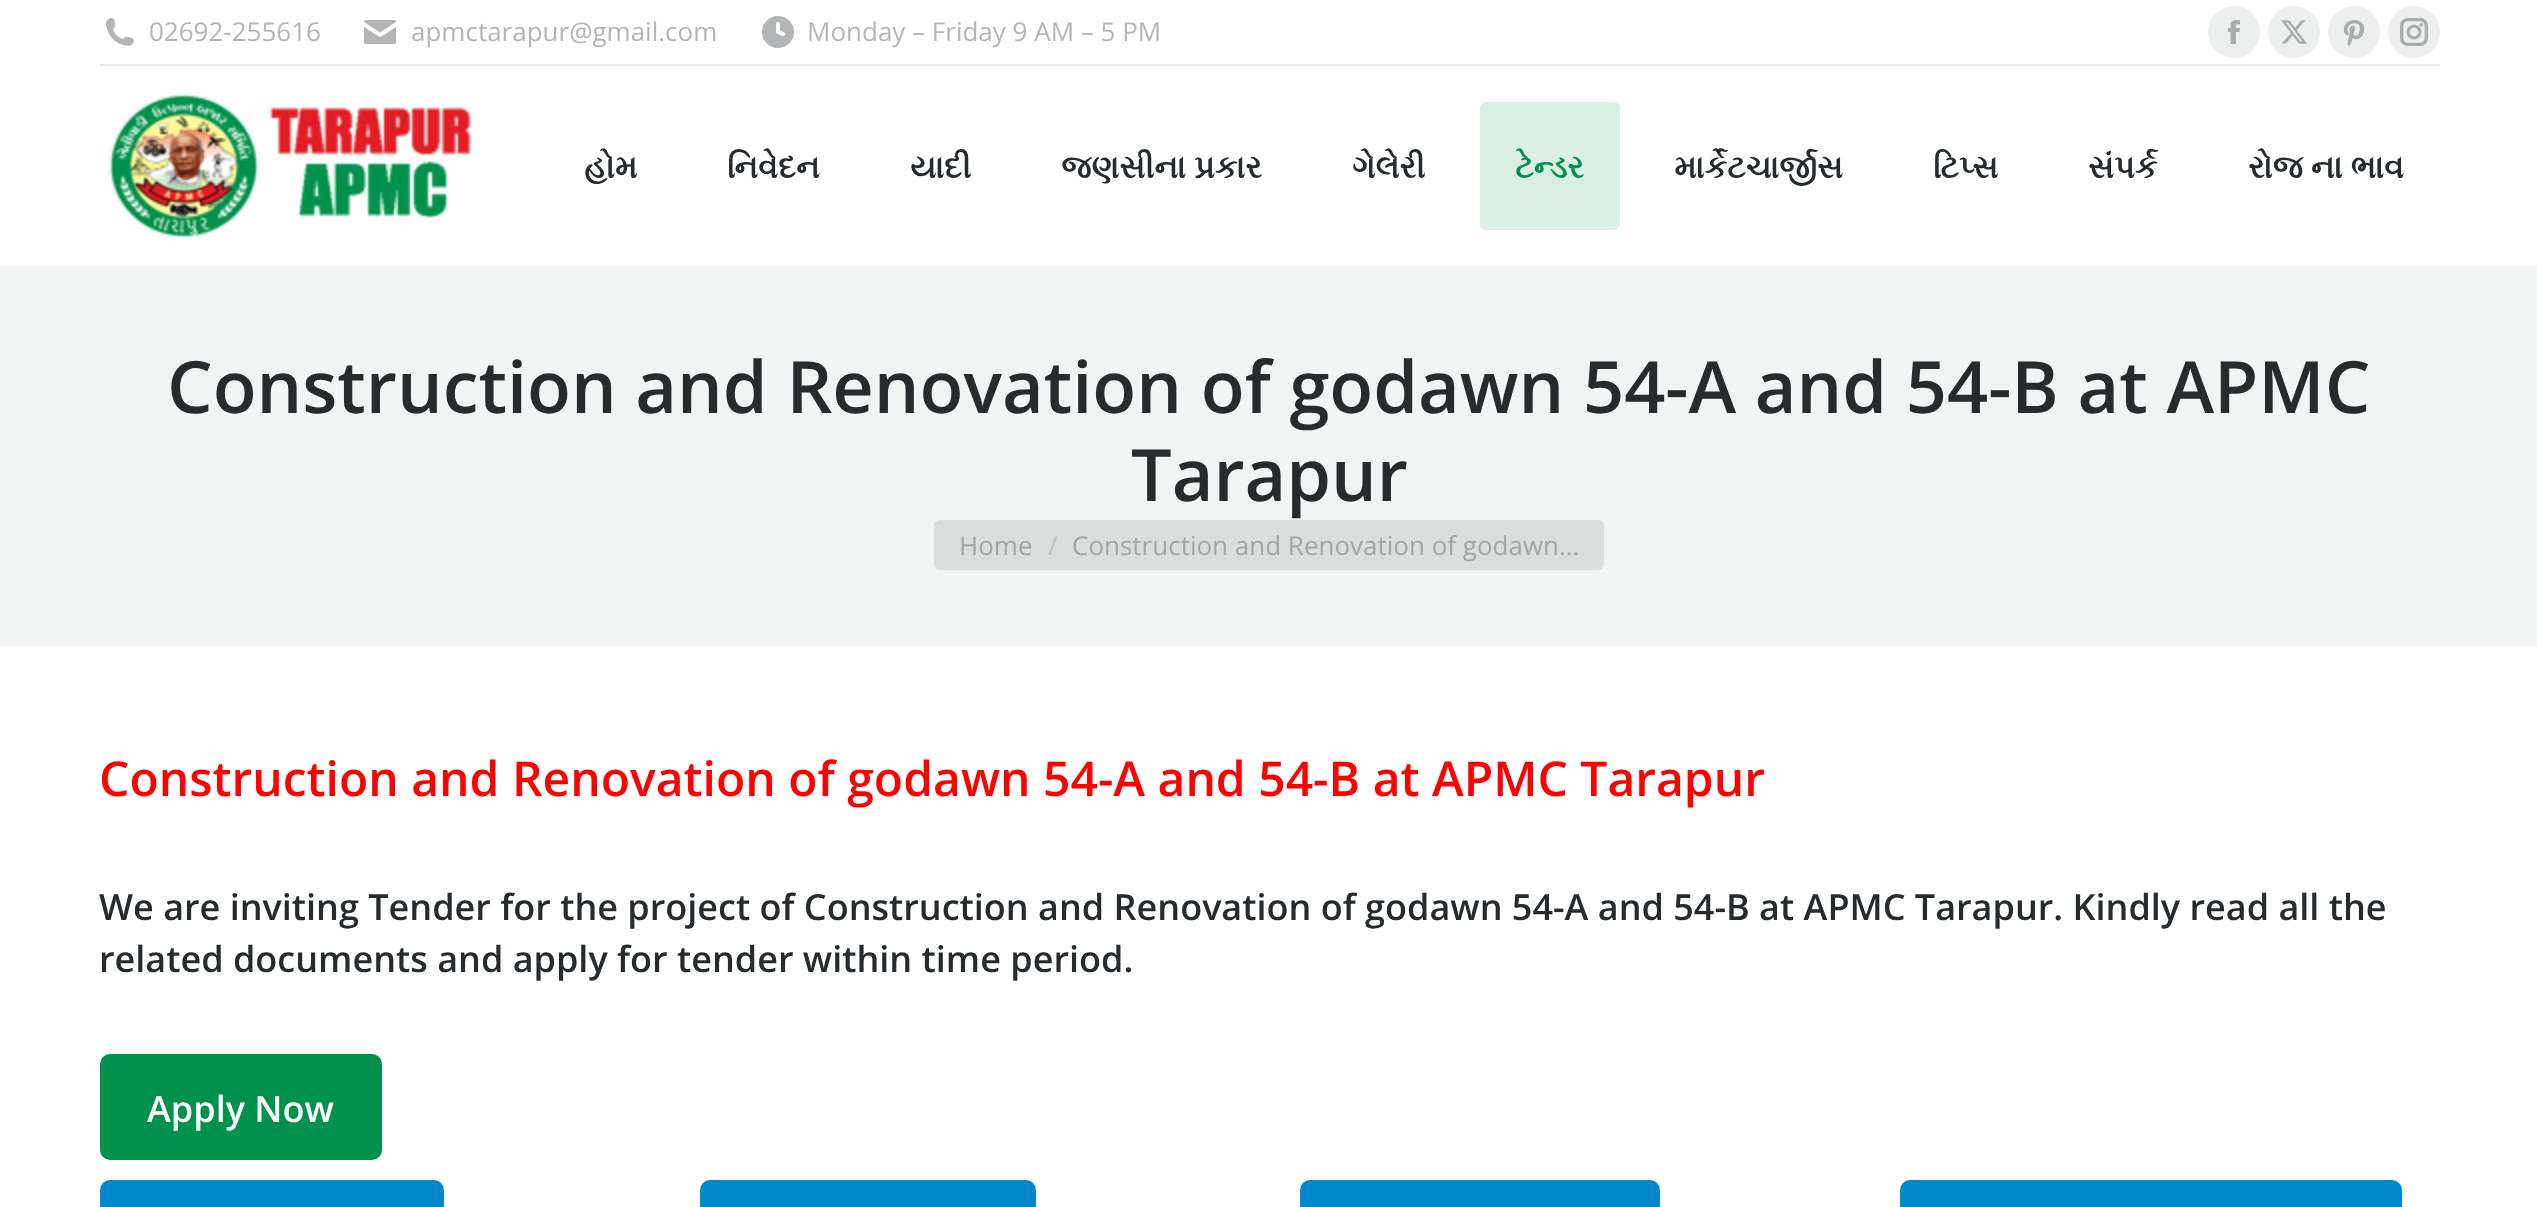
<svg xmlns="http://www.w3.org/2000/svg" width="2537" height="1207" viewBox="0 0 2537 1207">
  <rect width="100%" height="100%" fill="#fff"/>
  <image x="106" y="18" width="28" height="28" href="img/1.png"/>
  <image x="364" y="20" width="32" height="24" href="img/2.png"/>
  <image x="762" y="16" width="32" height="32" href="img/3.png"/>
  <circle cx="2234" cy="32" r="26" fill="#edeeee"/>
  <image x="2228" y="20" width="12" height="24" href="img/4.png"/>
  <circle cx="2294" cy="32" r="26" fill="#edeeee"/>
  <image x="2281" y="20" width="26" height="24" href="img/5.png"/>
  <circle cx="2354" cy="32" r="26" fill="#edeeee"/>
  <image x="2343" y="20" width="22" height="26" href="img/6.png"/>
  <circle cx="2414" cy="32" r="26" fill="#edeeee"/>
  <image x="2400" y="18" width="28" height="28" href="img/7.png"/>
  <path d="M100 64h2340v2H100z" fill="#e7e7e8"/>
  <image x="108" y="94" width="363" height="144" href="img/8.png"/>
  <rect x="1480" y="102" width="140" height="128" rx="6" fill="#d9efe4"/>
  <path d="M0 266h2537v380H0z" fill="#f2f3f3"/>
  <rect x="934" y="520" width="670" height="50" rx="6" fill="#dbdddd"/>
  <rect x="100" y="1054" width="282" height="106" rx="10" fill="#00924d"/>
  <rect x="100" y="1180" width="344" height="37" rx="10" fill="#08c"/>
  <rect x="700" y="1180" width="336" height="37" rx="10" fill="#08c"/>
  <rect x="1300" y="1180" width="360" height="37" rx="10" fill="#08c"/>
  <rect x="1900" y="1180" width="502" height="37" rx="10" fill="#08c"/>
  <g font-family="Open Sans" font-size="26" fill="#b3b5b6">
    <text x="149" y="41">02692-255616</text>
    <text x="411" y="41">apmctarapur@gmail.com</text>
    <text x="807" y="41">Monday – Friday 9 AM – 5 PM</text>
  </g>
  <g font-family="FreeSerif" font-size="32" font-weight="bold" fill="#262b2e">
    <text x="584" y="178">હોમ</text>
    <text x="727" y="178">નિવેદન</text>
    <text x="910" y="178">યાદી</text>
    <text x="1061" y="178">જણસીના પ્રકાર</text>
    <text x="1352" y="178">ગેલેરી</text>
  </g>
  <text x="1515" y="178" font-family="FreeSerif" font-size="32" font-weight="bold" fill="#00924d">ટેન્ડર</text>
  <g font-family="FreeSerif" font-size="32" font-weight="bold" fill="#262b2e">
    <text x="1674" y="178">માર્કેટચાર્જીસ</text>
    <text x="1933" y="178">ટિપ્સ</text>
    <text x="2088" y="178">સંપર્ક</text>
    <text x="2248" y="178">રોજ ના ભાવ</text>
  </g>
  <g font-family="Open Sans" font-size="72" font-weight="600" fill="#262b2e">
    <text x="167" y="413">Construction and Renovation of godawn 54-A and 54-B at APMC</text>
    <text x="1131" y="501">Tarapur</text>
  </g>
  <text x="959" y="555" font-family="Open Sans" font-size="26" fill="#a2a5a6">Home</text>
  <text x="1048" y="555" font-family="Open Sans" font-size="26" fill="#bfc1c2">/</text>
  <text x="1072" y="555" font-family="Open Sans" font-size="26" fill="#a2a5a6">Construction and Renovation of godawn…</text>
  <text x="99" y="796" font-family="Open Sans" font-size="48" font-weight="600" fill="#f00">Construction and Renovation of godawn 54-A and 54-B at APMC Tarapur</text>
  <g font-family="Open Sans" font-size="36" font-weight="600" fill="#262b2e">
    <text x="99" y="920">We are inviting Tender for the project of Construction and Renovation of godawn 54-A and 54-B at APMC Tarapur. Kindly read all the</text>
    <text x="99" y="972">related documents and apply for tender within time period.</text>
  </g>
  <text x="147" y="1122" font-family="Open Sans" font-size="36" font-weight="600" fill="#fff">Apply Now</text>
</svg>
